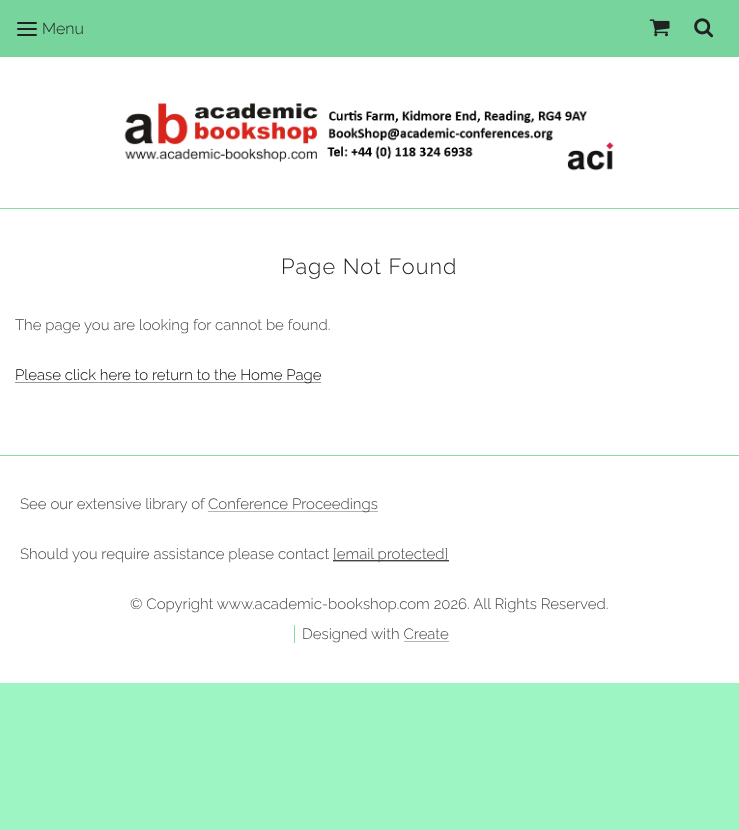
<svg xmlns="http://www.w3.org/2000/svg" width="739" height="830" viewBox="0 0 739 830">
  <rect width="100%" height="100%" fill="#9df5c3"/>
  <path d="M0 57h739v151H0z" fill="#fff"/>
  <path d="M0 208h739v1H0z" fill="#86dba9"/>
  <path d="M0 0h739v57H0z" fill="#77d49c"/>
  <rect x="17" y="28" width="20" height="2" rx="1" fill="#222"/>
  <rect x="17" y="22" width="20" height="2" rx="1" fill="#222"/>
  <rect x="17" y="34" width="20" height="2" rx="1" fill="#222"/>
  <image x="649" y="19" width="21" height="18" href="img/1.png"/>
  <image x="694" y="18" width="20" height="20" href="img/2.png"/>
  <image x="124" y="103" width="490" height="68" href="img/3.png"/>
  <path d="M0 209h739v246H0z" fill="#fff"/>
  <path d="M15 382h306v1H15z" fill="#999"/>
  <path d="M0 456h739v227H0z" fill="#fff"/>
  <path d="M0 455h739v1H0z" fill="#86dba9"/>
  <path d="M208 511h170v1H208z" fill="#b4b4b4"/>
  <path d="M333 561h116v1H333z" fill="#b4b4b4"/>
  <path d="M333 560h116v1H333z" fill="#444"/>
  <path d="M294 625h1v18H294z" fill="#86dba9"/>
  <text x="42" y="34" font-family="Raleway" font-size="16" font-weight="300" fill="#222">Menu</text>
  <text x="281" y="274" font-family="Raleway" font-size="21.75" font-weight="300" letter-spacing="1" fill="#222">Page Not Found</text>
  <text x="15" y="330" font-family="Raleway" font-size="15" font-weight="300" fill="#444">The page you are looking for cannot be found.</text>
  <text x="15" y="380" font-family="Raleway" font-size="15" font-weight="300" fill="#000">Please click here to return to the Home Page</text>
  <g font-family="Raleway" font-size="15" font-weight="300" fill="#444">
    <text x="20" y="509">See our extensive library of</text>
    <text x="208" y="509">Conference Proceedings</text>
    <text x="20" y="559">Should you require assistance please contact</text>
    <text x="333" y="559">[email protected]</text>
    <text x="130" y="609">© Copyright www.academic-bookshop.com 2026. All Rights Reserved.</text>
    <text x="302" y="639">Designed with Create</text>
  </g>
  <path d="M404 641h45v1H404z" fill="#b4b4b4"/>
</svg>
